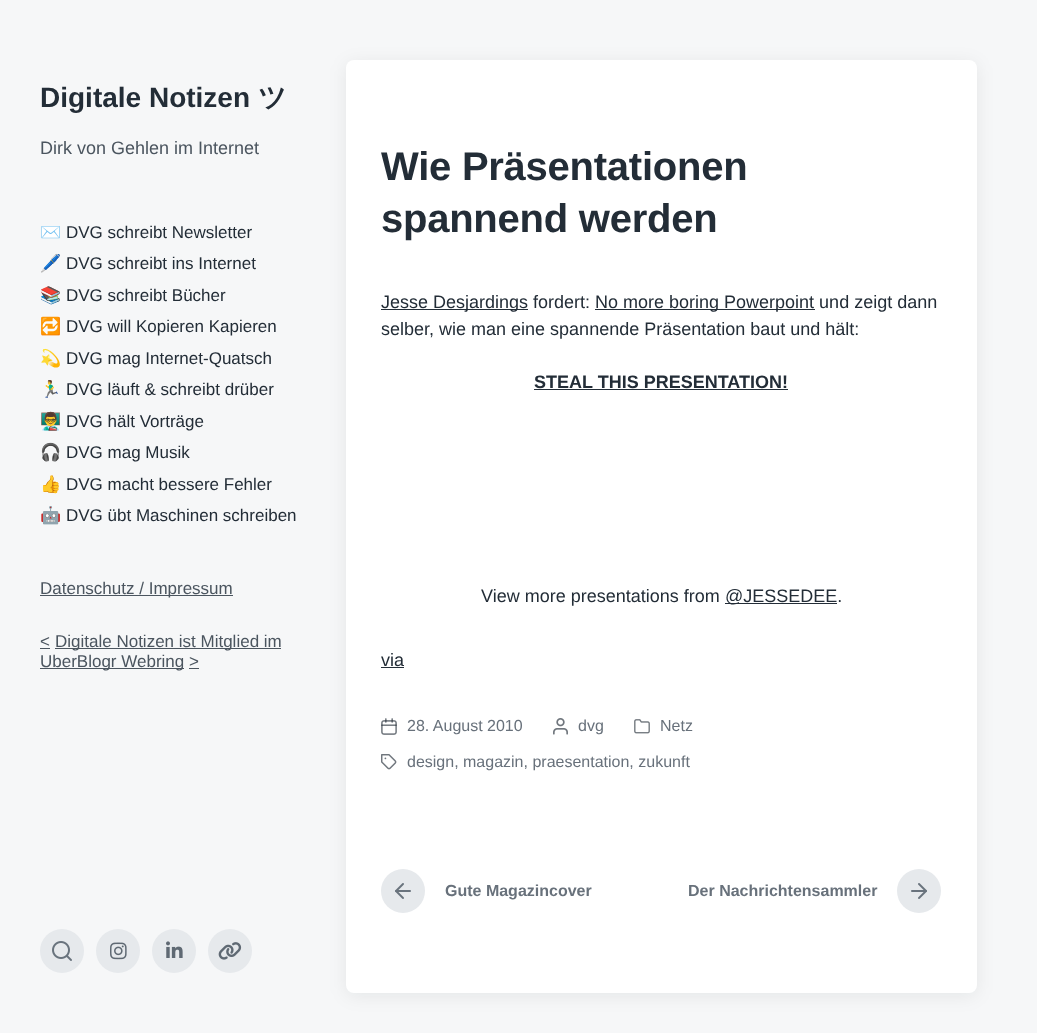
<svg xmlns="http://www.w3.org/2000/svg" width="1037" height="1033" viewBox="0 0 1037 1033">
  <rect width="100%" height="100%" fill="#f6f7f8"/>
  <path d="M40 595h193v1H40z" fill="#4b555f"/>
  <path d="M40 648h10v1H40z" fill="#4b555f"/>
  <path d="M55 648h226v1H55z" fill="#4b555f"/>
  <path d="M40 668h144v1H40z" fill="#4b555f"/>
  <path d="M189 668h10v1H189z" fill="#4b555f"/>
  <circle cx="62" cy="951" r="22" fill="#e6e9ec"/>
  <image x="52" y="941" width="20" height="20" href="img/1.png"/>
  <circle cx="118" cy="951" r="22" fill="#e6e9ec"/>
  <image x="110" y="942" width="17" height="18" href="img/2.png"/>
  <circle cx="174" cy="951" r="22" fill="#e6e9ec"/>
  <image x="166" y="941" width="17" height="17" href="img/3.png"/>
  <circle cx="230" cy="951" r="22" fill="#e6e9ec"/>
  <image x="218" y="942" width="24" height="18" href="img/4.png"/>
  <rect x="346" y="63" width="631" height="933" rx="8" fill="#050a0f12" filter="blur(9px)"/>
  <rect x="346" y="60" width="631" height="933" rx="8" fill="#fff"/>
  <path d="M381 309h147v1H381z" fill="#232d37"/>
  <path d="M595 309h220v1H595z" fill="#232d37"/>
  <path d="M534 389h254v1H534z" fill="#232d37"/>
  <path d="M725 603h112v1H725z" fill="#232d37"/>
  <path d="M381 667h23v1H381z" fill="#232d37"/>
  <image x="381" y="718" width="16" height="17" href="img/5.png"/>
  <image x="553" y="718" width="15" height="17" href="img/6.png"/>
  <image x="634" y="719" width="16" height="15" href="img/7.png"/>
  <image x="381" y="754" width="16" height="16" href="img/8.png"/>
  <circle cx="403" cy="891" r="22" fill="#e6e9ec"/>
  <image x="395" y="883" width="16" height="16" href="img/9.png"/>
  <circle cx="919" cy="891" r="22" fill="#e6e9ec"/>
  <image x="911" y="883" width="16" height="16" href="img/10.png"/>
  <text x="40" y="107" font-family="Liberation Sans" font-size="28" font-weight="bold" fill="#232d37">Digitale Notizen</text>
  <text x="258" y="107" font-family="WenQuanYi Zen Hei" font-size="28" font-weight="bold" fill="#232d37">ツ</text>
  <text x="40" y="154" font-family="Liberation Sans" font-size="18" fill="#4b555f">Dirk von Gehlen im Internet</text>
  <text x="40" y="238" font-family="Noto Color Emoji" font-size="17" fill="#232d37">✉️</text>
  <text x="66" y="238" font-family="Liberation Sans" font-size="17" fill="#232d37">DVG schreibt Newsletter</text>
  <text x="40" y="269" font-family="Noto Color Emoji" font-size="17" fill="#232d37">🖊️</text>
  <text x="66" y="269" font-family="Liberation Sans" font-size="17" fill="#232d37">DVG schreibt ins Internet</text>
  <text x="40" y="301" font-family="Noto Color Emoji" font-size="17" fill="#232d37">📚</text>
  <text x="66" y="301" font-family="Liberation Sans" font-size="17" fill="#232d37">DVG schreibt Bücher</text>
  <text x="40" y="332" font-family="Noto Color Emoji" font-size="17" fill="#232d37">🔁</text>
  <text x="66" y="332" font-family="Liberation Sans" font-size="17" fill="#232d37">DVG will Kopieren Kapieren</text>
  <text x="40" y="364" font-family="Noto Color Emoji" font-size="17" fill="#232d37">💫</text>
  <text x="66" y="364" font-family="Liberation Sans" font-size="17" fill="#232d37">DVG mag Internet-Quatsch</text>
  <text x="40" y="395" font-family="Noto Color Emoji" font-size="17" fill="#232d37">🏃‍♂️</text>
  <text x="66" y="395" font-family="Liberation Sans" font-size="17" fill="#232d37">DVG läuft &amp; schreibt drüber</text>
  <text x="40" y="427" font-family="Noto Color Emoji" font-size="17" fill="#232d37">👨‍🏫</text>
  <text x="66" y="427" font-family="Liberation Sans" font-size="17" fill="#232d37">DVG hält Vorträge</text>
  <text x="40" y="458" font-family="Noto Color Emoji" font-size="17" fill="#232d37">🎧</text>
  <text x="66" y="458" font-family="Liberation Sans" font-size="17" fill="#232d37">DVG mag Musik</text>
  <text x="40" y="490" font-family="Noto Color Emoji" font-size="17" fill="#232d37">👍</text>
  <text x="66" y="490" font-family="Liberation Sans" font-size="17" fill="#232d37">DVG macht bessere Fehler</text>
  <text x="40" y="521" font-family="Noto Color Emoji" font-size="17" fill="#232d37">🤖</text>
  <text x="66" y="521" font-family="Liberation Sans" font-size="17" fill="#232d37">DVG übt Maschinen schreiben</text>
  <g font-family="Liberation Sans" font-size="17" fill="#4b555f">
    <text x="40" y="594">Datenschutz / Impressum</text>
    <text x="40" y="647">&lt;</text>
    <text x="55" y="647">Digitale Notizen ist Mitglied im</text>
    <text x="40" y="667">UberBlogr Webring &gt;</text>
  </g>
  <g font-family="Liberation Sans" font-size="40" font-weight="bold" letter-spacing="-0.25" fill="#232d37">
    <text x="381" y="180">Wie Präsentationen</text>
    <text x="381" y="232">spannend werden</text>
  </g>
  <g font-family="Liberation Sans" font-size="18" fill="#232d37">
    <text x="381" y="308">Jesse Desjardings fordert:</text>
    <text x="595" y="308">No more boring Powerpoint und zeigt dann</text>
    <text x="381" y="335">selber, wie man eine spannende Präsentation baut und hält:</text>
  </g>
  <text x="534" y="388" font-family="Liberation Sans" font-size="18" font-weight="bold" fill="#232d37">STEAL THIS PRESENTATION!</text>
  <g font-family="Liberation Sans" font-size="18" fill="#232d37">
    <text x="481" y="602">View more presentations from</text>
    <text x="725" y="602">@JESSEDEE.</text>
    <text x="381" y="666">via</text>
  </g>
  <g font-family="Liberation Sans" font-size="16" fill="#68717b">
    <text x="407" y="731">28. August 2010</text>
    <text x="578" y="731">dvg</text>
    <text x="660" y="731">Netz</text>
    <text x="407" y="767">design, magazin, praesentation, zukunft</text>
  </g>
  <g font-family="Liberation Sans" font-size="16" font-weight="bold" fill="#68717b">
    <text x="445" y="896">Gute Magazincover</text>
    <text x="688" y="896">Der Nachrichtensammler</text>
  </g>
</svg>
